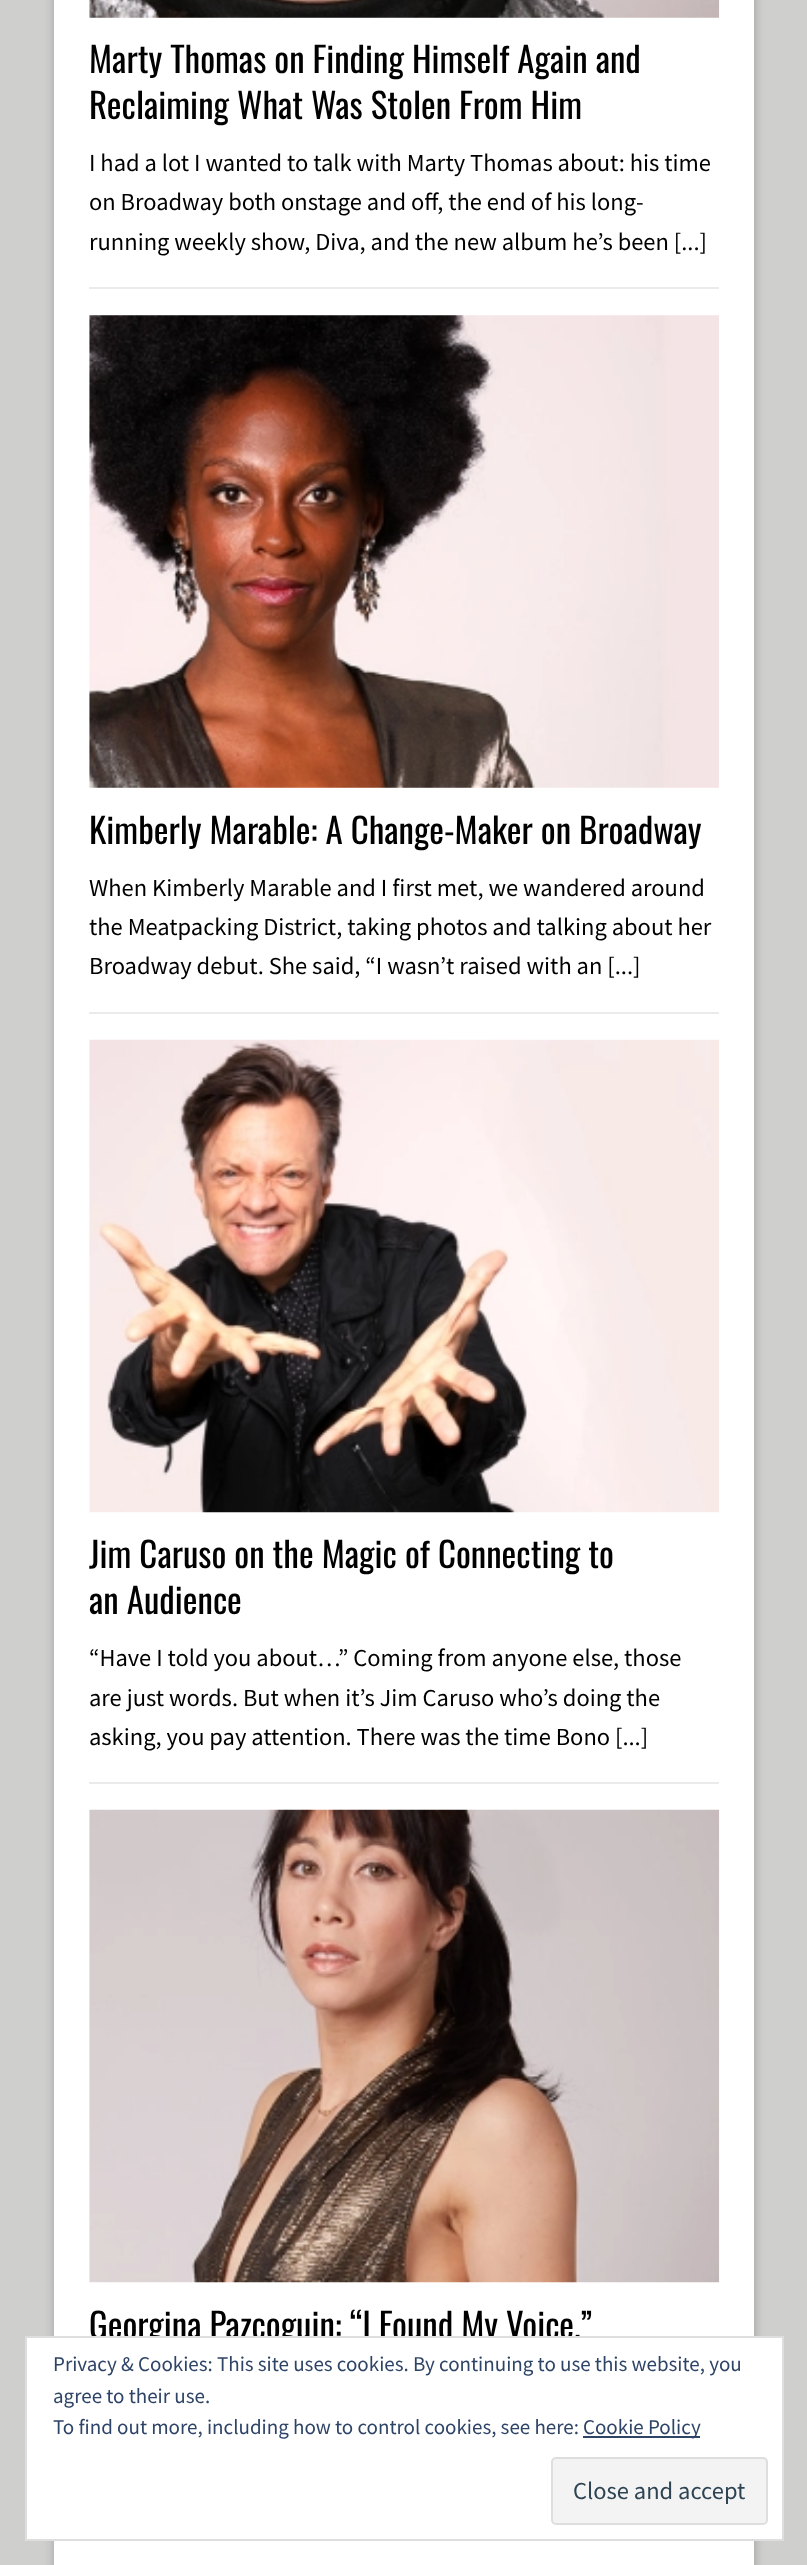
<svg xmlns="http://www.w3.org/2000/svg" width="807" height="2565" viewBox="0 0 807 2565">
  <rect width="100%" height="100%" fill="#cfcfce"/>
  <path d="M53 -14h703v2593H53z" fill="#a8a8a8" filter="blur(4.5px)"/>
  <path d="M54 0h700v2565H54z" fill="#fff"/>
  <path d="M89 287h630v2H89z" fill="#ebebeb"/>
  <image x="89" y="0" width="631" height="18" href="img/1.png"/>
  <path d="M89 1012h630v2H89z" fill="#ebebeb"/>
  <image x="89" y="315" width="630" height="473" href="img/2.png"/>
  <path d="M89 1782h630v2H89z" fill="#ebebeb"/>
  <image x="89" y="1039" width="630" height="474" href="img/3.png"/>
  <image x="89" y="1809" width="631" height="474" href="img/4.png"/>
  <g font-family="Oswald" font-size="35" fill="#000">
    <text x="89" y="73">Marty Thomas on Finding Himself Again and</text>
    <text x="89" y="119">Reclaiming What Was Stolen From Him</text>
  </g>
  <g font-family="Source Sans Pro" font-size="24.5" fill="#000">
    <text x="89" y="171">I had a lot I wanted to talk with Marty Thomas about: his time</text>
    <text x="89" y="210">on Broadway both onstage and off, the end of his long-</text>
    <text x="89" y="250">running weekly show, Diva, and the new album he’s been [...]</text>
  </g>
  <text x="89" y="844" font-family="Oswald" font-size="35" fill="#000">Kimberly Marable: A Change-Maker on Broadway</text>
  <g font-family="Source Sans Pro" font-size="24.5" fill="#000">
    <text x="89" y="896">When Kimberly Marable and I first met, we wandered around</text>
    <text x="89" y="935">the Meatpacking District, taking photos and talking about her</text>
    <text x="89" y="974">Broadway debut. She said, “I wasn’t raised with an [...]</text>
  </g>
  <g font-family="Oswald" font-size="35" fill="#000">
    <text x="89" y="1568">Jim Caruso on the Magic of Connecting to</text>
    <text x="89" y="1614">an Audience</text>
  </g>
  <g font-family="Source Sans Pro" font-size="24.5" fill="#000">
    <text x="89" y="1666">“Have I told you about…” Coming from anyone else, those</text>
    <text x="89" y="1706">are just words. But when it’s Jim Caruso who’s doing the</text>
    <text x="89" y="1745">asking, you pay attention. There was the time Bono [...]</text>
  </g>
  <text x="89" y="2339" font-family="Oswald" font-size="35" fill="#000">Georgina Pazcoguin: “I Found My Voice.”</text>
  <path d="M26 2337h757v203H26z" fill="#fff" stroke="#dedede" stroke-width="2"/>
  <g font-family="Source Sans Pro" font-size="21" fill="#2e4467">
    <text x="53" y="2371">Privacy &amp; Cookies: This site uses cookies. By continuing to use this website, you</text>
    <text x="53" y="2403">agree to their use.</text>
    <text x="53" y="2434">To find out more, including how to control cookies, see here:</text>
  </g>
  <path d="M583 2436h117v2H583z" fill="#2e4467"/>
  <text x="583" y="2434" font-family="Source Sans Pro" font-size="21" fill="#2e4467">Cookie Policy</text>
  <rect x="552" y="2458" width="215" height="66" rx="4" fill="#f3f3f3" stroke="#dedede" stroke-width="2"/>
  <text x="573" y="2499" font-family="Source Sans Pro" font-size="24.5" fill="#2e4453">Close and accept</text>
</svg>
